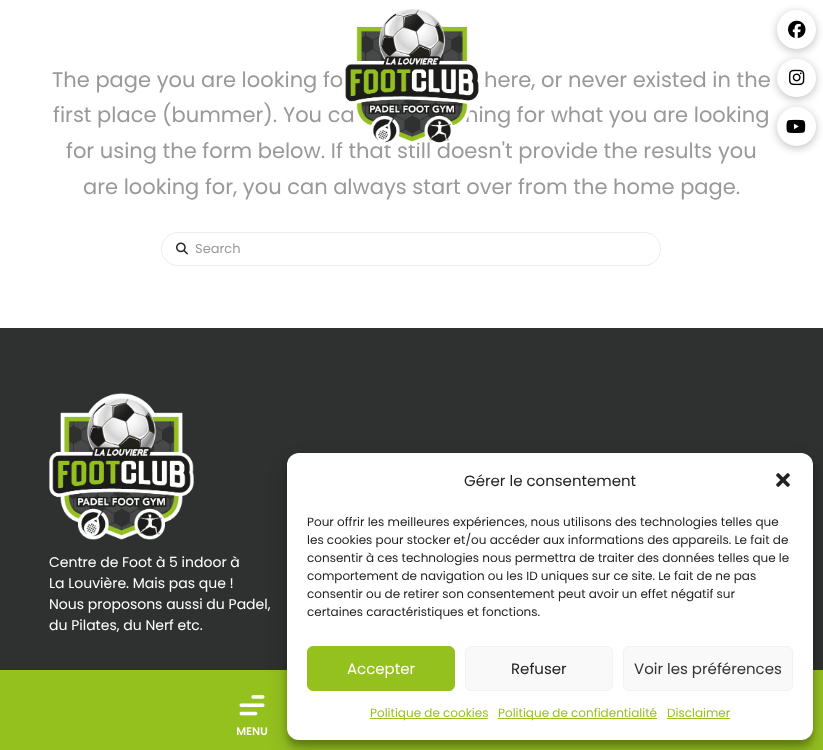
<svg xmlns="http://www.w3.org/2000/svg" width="823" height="750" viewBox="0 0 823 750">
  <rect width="100%" height="100%" fill="#fff"/>
  <rect x="777" y="12" width="39" height="39" rx="19.5" fill="#00000040" filter="blur(4.5px)"/>
  <circle cx="796.5" cy="29.5" r="19.5" fill="#fff"/>
  <image x="788" y="20" width="18" height="18" href="img/2.png"/>
  <rect x="777" y="61" width="39" height="38" rx="19" fill="#00000040" filter="blur(4.5px)"/>
  <rect x="777" y="59" width="39" height="38" rx="19" fill="#fff"/>
  <image x="789" y="69" width="16" height="17" href="img/3.png"/>
  <rect x="777" y="109" width="39" height="39" rx="19.5" fill="#00000040" filter="blur(4.5px)"/>
  <circle cx="796.5" cy="126.5" r="19.5" fill="#fff"/>
  <image x="786" y="119" width="20" height="14" href="img/4.png"/>
  <path d="M0 670h823v80H0z" fill="#95c11f"/>
  <image x="237" y="695" width="31" height="41" href="img/5.png"/>
  <rect x="161.5" y="232.5" width="499" height="33" rx="16.5" fill="none" stroke="#ececec"/>
  <image x="176" y="242" width="12" height="13" href="img/6.png"/>
  <path d="M0 328h823v342H0z" fill="#2f3131"/>
  <image x="49" y="393" width="145" height="147" href="img/7.png"/>
  <rect x="287" y="459" width="526" height="287" rx="12" fill="#0000003b" filter="blur(3px)"/>
  <rect x="287" y="463" width="526" height="287" rx="12" fill="#00000030" filter="blur(10px)"/>
  <rect x="287" y="453" width="526" height="287" rx="12" fill="#fff"/>
  <image x="776" y="473" width="14" height="14" href="img/8.png"/>
  <rect x="307.5" y="646.5" width="147" height="44" rx="5.5" fill="#95c11f" stroke="#95c11f"/>
  <rect x="465.5" y="646.5" width="147" height="44" rx="5.5" fill="#f9f9f9" stroke="#f2f2f2"/>
  <rect x="623.5" y="646.5" width="169" height="44" rx="5.5" fill="#f9f9f9" stroke="#f2f2f2"/>
  <path d="M370 718h118v1H370z" fill="#95c11f"/>
  <path d="M498 718h159v1H498z" fill="#95c11f"/>
  <path d="M667 718h63v1H667z" fill="#95c11f"/>
  <g font-family="Poppins" font-size="21" fill="#999">
    <text x="52" y="87">The page you are looking fo</text>
    <text x="484" y="87">here, or never existed in the</text>
    <text x="53" y="122">first place (bummer). You ca</text>
    <text x="465" y="122">hing for what you are looking</text>
    <text x="66" y="158">for using the form below. If that still doesn't provide the results you</text>
  </g>
  <image x="342" y="9" width="137" height="137" href="img/1.png"/>
  <text x="83" y="194" font-family="Poppins" font-size="21" fill="#999">are looking for, you can always start over from the home page.</text>
  <text x="195" y="253" font-family="Poppins" font-size="13" fill="#999">Search</text>
  <g font-family="Poppins" font-size="14" fill="#fff">
    <text x="49" y="567">Centre de Foot à 5 indoor à</text>
    <text x="49" y="588">La Louvière. Mais pas que !</text>
    <text x="49" y="609">Nous proposons aussi du Padel,</text>
    <text x="49" y="630">du Pilates, du Nerf etc.</text>
  </g>
  <text x="464" y="486" font-family="Poppins" font-size="15" fill="#222">Gérer le consentement</text>
  <g font-family="Poppins" font-size="12" fill="#222">
    <text x="307" y="526">Pour offrir les meilleures expériences, nous utilisons des technologies telles que</text>
    <text x="307" y="544">les cookies pour stocker et/ou accéder aux informations des appareils. Le fait de</text>
    <text x="307" y="562">consentir à ces technologies nous permettra de traiter des données telles que le</text>
    <text x="307" y="580">comportement de navigation ou les ID uniques sur ce site. Le fait de ne pas</text>
    <text x="307" y="598">consentir ou de retirer son consentement peut avoir un effet négatif sur</text>
    <text x="307" y="616">certaines caractéristiques et fonctions.</text>
  </g>
  <text x="347" y="674" font-family="Poppins" font-size="15" fill="#fff">Accepter</text>
  <text x="511" y="674" font-family="Poppins" font-size="15" fill="#222">Refuser</text>
  <text x="634" y="674" font-family="Poppins" font-size="15" fill="#333">Voir les préférences</text>
  <g font-family="Poppins" font-size="12" fill="#95c11f">
    <text x="370" y="717">Politique de cookies</text>
    <text x="498" y="717">Politique de confidentialité</text>
    <text x="667" y="717">Disclaimer</text>
  </g>
</svg>
